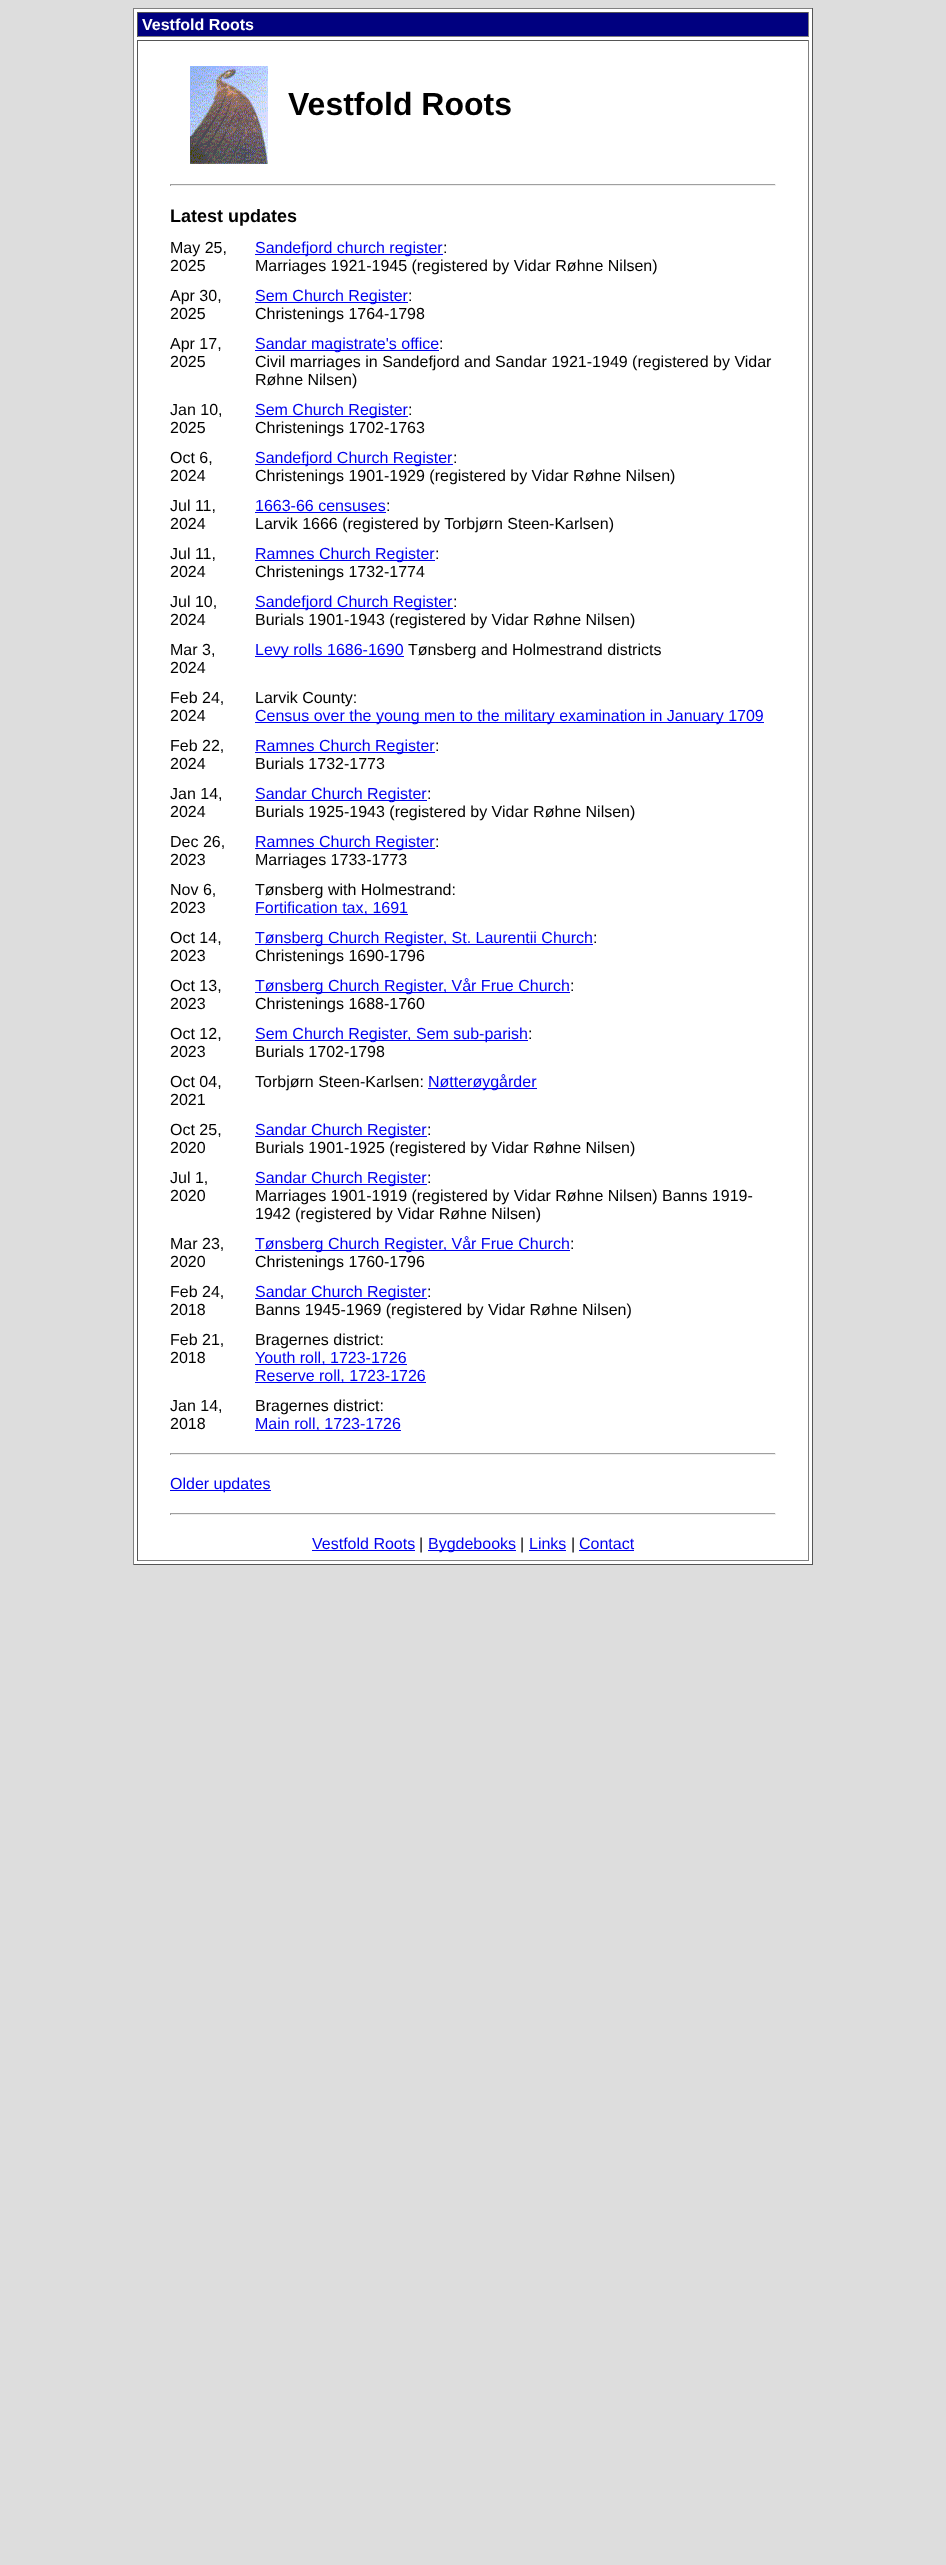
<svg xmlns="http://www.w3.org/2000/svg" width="946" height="2565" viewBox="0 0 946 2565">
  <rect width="100%" height="100%" fill="#ddd"/>
  <path d="M134 9h678v1555H134z" fill="#fff"/>
  <path d="M133 8h680v1H133z" fill="#808080"/>
  <path d="M812 8h1v1557H812z" fill="#555"/>
  <path d="M133 1564h680v1H133z" fill="#555"/>
  <path d="M133 8h1v1557H133z" fill="#808080"/>
  <path d="M138 13h670v23H138z" fill="#000080"/>
  <path d="M137 12h672v1H137z" fill="#555"/>
  <path d="M808 12h1v25H808z" fill="#808080"/>
  <path d="M137 36h672v1H137z" fill="#808080"/>
  <path d="M137 12h1v25H137z" fill="#555"/>
  <path d="M137 40h672v1H137z" fill="#555"/>
  <path d="M808 40h1v1521H808z" fill="#808080"/>
  <path d="M137 1560h672v1H137z" fill="#808080"/>
  <path d="M137 40h1v1521H137z" fill="#555"/>
  <image x="190" y="66" width="78" height="98" href="img/1.png"/>
  <path d="M170 184h606v1H170z" fill="#9f9f9f"/>
  <path d="M775 184h1v2H775z" fill="#eee"/>
  <path d="M170 185h606v1H170z" fill="#eee"/>
  <path d="M170 184h1v2H170z" fill="#9f9f9f"/>
  <path d="M255 254h188v1H255z" fill="#00e"/>
  <path d="M255 302h153v1H255z" fill="#00e"/>
  <path d="M255 350h184v1H255z" fill="#00e"/>
  <path d="M255 416h153v1H255z" fill="#00e"/>
  <path d="M255 464h198v1H255z" fill="#00e"/>
  <path d="M255 512h131v1H255z" fill="#00e"/>
  <path d="M255 560h180v1H255z" fill="#00e"/>
  <path d="M255 608h198v1H255z" fill="#00e"/>
  <path d="M255 656h149v1H255z" fill="#00e"/>
  <path d="M255 722h509v1H255z" fill="#00e"/>
  <path d="M255 752h180v1H255z" fill="#00e"/>
  <path d="M255 800h172v1H255z" fill="#00e"/>
  <path d="M255 848h180v1H255z" fill="#00e"/>
  <path d="M255 914h153v1H255z" fill="#00e"/>
  <path d="M255 944h338v1H255z" fill="#00e"/>
  <path d="M255 992h315v1H255z" fill="#00e"/>
  <path d="M255 1040h273v1H255z" fill="#00e"/>
  <path d="M428 1088h109v1H428z" fill="#00e"/>
  <path d="M255 1136h172v1H255z" fill="#00e"/>
  <path d="M255 1184h172v1H255z" fill="#00e"/>
  <path d="M255 1250h315v1H255z" fill="#00e"/>
  <path d="M255 1298h172v1H255z" fill="#00e"/>
  <path d="M255 1364h152v1H255z" fill="#00e"/>
  <path d="M255 1382h171v1H255z" fill="#00e"/>
  <path d="M255 1430h146v1H255z" fill="#00e"/>
  <path d="M170 1453h606v1H170z" fill="#9f9f9f"/>
  <path d="M775 1453h1v2H775z" fill="#eee"/>
  <path d="M170 1454h606v1H170z" fill="#eee"/>
  <path d="M170 1453h1v2H170z" fill="#9f9f9f"/>
  <path d="M170 1490h101v1H170z" fill="#00e"/>
  <path d="M170 1513h606v1H170z" fill="#9f9f9f"/>
  <path d="M775 1513h1v2H775z" fill="#eee"/>
  <path d="M170 1514h606v1H170z" fill="#eee"/>
  <path d="M170 1513h1v2H170z" fill="#9f9f9f"/>
  <path d="M312 1550h103v1H312z" fill="#00e"/>
  <path d="M428 1550h88v1H428z" fill="#00e"/>
  <path d="M529 1550h37v1H529z" fill="#00e"/>
  <path d="M579 1550h55v1H579z" fill="#00e"/>
  <text x="142" y="30" font-family="Liberation Sans" font-size="16" font-weight="bold" fill="#fff">Vestfold Roots</text>
  <text x="288" y="115" font-family="Liberation Sans" font-size="32" font-weight="bold" fill="#000">Vestfold Roots</text>
  <text x="170" y="222" font-family="Liberation Sans" font-size="18" font-weight="bold" fill="#000">Latest updates</text>
  <g font-family="Liberation Sans" font-size="16" fill="#000">
    <text x="170" y="253">May 25,</text>
    <text x="170" y="271">2025</text>
  </g>
  <text x="255" y="253" font-family="Liberation Sans" font-size="16" fill="#00e">Sandefjord church register</text>
  <g font-family="Liberation Sans" font-size="16" fill="#000">
    <text x="443" y="253">:</text>
    <text x="255" y="271">Marriages 1921-1945 (registered by Vidar Røhne Nilsen)</text>
    <text x="170" y="301">Apr 30,</text>
    <text x="170" y="319">2025</text>
  </g>
  <text x="255" y="301" font-family="Liberation Sans" font-size="16" fill="#00e">Sem Church Register</text>
  <g font-family="Liberation Sans" font-size="16" fill="#000">
    <text x="408" y="301">:</text>
    <text x="255" y="319">Christenings 1764-1798</text>
    <text x="170" y="349">Apr 17,</text>
    <text x="170" y="367">2025</text>
  </g>
  <text x="255" y="349" font-family="Liberation Sans" font-size="16" fill="#00e">Sandar magistrate's office</text>
  <g font-family="Liberation Sans" font-size="16" fill="#000">
    <text x="439" y="349">:</text>
    <text x="255" y="367">Civil marriages in Sandefjord and Sandar 1921-1949 (registered by Vidar</text>
    <text x="255" y="385">Røhne Nilsen)</text>
    <text x="170" y="415">Jan 10,</text>
    <text x="170" y="433">2025</text>
  </g>
  <text x="255" y="415" font-family="Liberation Sans" font-size="16" fill="#00e">Sem Church Register</text>
  <g font-family="Liberation Sans" font-size="16" fill="#000">
    <text x="408" y="415">:</text>
    <text x="255" y="433">Christenings 1702-1763</text>
    <text x="170" y="463">Oct 6,</text>
    <text x="170" y="481">2024</text>
  </g>
  <text x="255" y="463" font-family="Liberation Sans" font-size="16" fill="#00e">Sandefjord Church Register</text>
  <g font-family="Liberation Sans" font-size="16" fill="#000">
    <text x="453" y="463">:</text>
    <text x="255" y="481">Christenings 1901-1929 (registered by Vidar Røhne Nilsen)</text>
    <text x="170" y="511">Jul 11,</text>
    <text x="170" y="529">2024</text>
  </g>
  <text x="255" y="511" font-family="Liberation Sans" font-size="16" fill="#00e">1663-66 censuses</text>
  <g font-family="Liberation Sans" font-size="16" fill="#000">
    <text x="386" y="511">:</text>
    <text x="255" y="529">Larvik 1666 (registered by Torbjørn Steen-Karlsen)</text>
    <text x="170" y="559">Jul 11,</text>
    <text x="170" y="577">2024</text>
  </g>
  <text x="255" y="559" font-family="Liberation Sans" font-size="16" fill="#00e">Ramnes Church Register</text>
  <g font-family="Liberation Sans" font-size="16" fill="#000">
    <text x="435" y="559">:</text>
    <text x="255" y="577">Christenings 1732-1774</text>
    <text x="170" y="607">Jul 10,</text>
    <text x="170" y="625">2024</text>
  </g>
  <text x="255" y="607" font-family="Liberation Sans" font-size="16" fill="#00e">Sandefjord Church Register</text>
  <g font-family="Liberation Sans" font-size="16" fill="#000">
    <text x="453" y="607">:</text>
    <text x="255" y="625">Burials 1901-1943 (registered by Vidar Røhne Nilsen)</text>
    <text x="170" y="655">Mar 3,</text>
    <text x="170" y="673">2024</text>
  </g>
  <text x="255" y="655" font-family="Liberation Sans" font-size="16" fill="#00e">Levy rolls 1686-1690</text>
  <g font-family="Liberation Sans" font-size="16" fill="#000">
    <text x="408" y="655">Tønsberg and Holmestrand districts</text>
    <text x="170" y="703">Feb 24,</text>
    <text x="170" y="721">2024</text>
    <text x="255" y="703">Larvik County:</text>
  </g>
  <text x="255" y="721" font-family="Liberation Sans" font-size="16" fill="#00e">Census over the young men to the military examination in January 1709</text>
  <g font-family="Liberation Sans" font-size="16" fill="#000">
    <text x="170" y="751">Feb 22,</text>
    <text x="170" y="769">2024</text>
  </g>
  <text x="255" y="751" font-family="Liberation Sans" font-size="16" fill="#00e">Ramnes Church Register</text>
  <g font-family="Liberation Sans" font-size="16" fill="#000">
    <text x="435" y="751">:</text>
    <text x="255" y="769">Burials 1732-1773</text>
    <text x="170" y="799">Jan 14,</text>
    <text x="170" y="817">2024</text>
  </g>
  <text x="255" y="799" font-family="Liberation Sans" font-size="16" fill="#00e">Sandar Church Register</text>
  <g font-family="Liberation Sans" font-size="16" fill="#000">
    <text x="427" y="799">:</text>
    <text x="255" y="817">Burials 1925-1943 (registered by Vidar Røhne Nilsen)</text>
    <text x="170" y="847">Dec 26,</text>
    <text x="170" y="865">2023</text>
  </g>
  <text x="255" y="847" font-family="Liberation Sans" font-size="16" fill="#00e">Ramnes Church Register</text>
  <g font-family="Liberation Sans" font-size="16" fill="#000">
    <text x="435" y="847">:</text>
    <text x="255" y="865">Marriages 1733-1773</text>
    <text x="170" y="895">Nov 6,</text>
    <text x="170" y="913">2023</text>
    <text x="255" y="895">Tønsberg with Holmestrand:</text>
  </g>
  <text x="255" y="913" font-family="Liberation Sans" font-size="16" fill="#00e">Fortification tax, 1691</text>
  <g font-family="Liberation Sans" font-size="16" fill="#000">
    <text x="170" y="943">Oct 14,</text>
    <text x="170" y="961">2023</text>
  </g>
  <text x="255" y="943" font-family="Liberation Sans" font-size="16" fill="#00e">Tønsberg Church Register, St. Laurentii Church</text>
  <g font-family="Liberation Sans" font-size="16" fill="#000">
    <text x="593" y="943">:</text>
    <text x="255" y="961">Christenings 1690-1796</text>
    <text x="170" y="991">Oct 13,</text>
    <text x="170" y="1009">2023</text>
  </g>
  <text x="255" y="991" font-family="Liberation Sans" font-size="16" fill="#00e">Tønsberg Church Register, Vår Frue Church</text>
  <g font-family="Liberation Sans" font-size="16" fill="#000">
    <text x="570" y="991">:</text>
    <text x="255" y="1009">Christenings 1688-1760</text>
    <text x="170" y="1039">Oct 12,</text>
    <text x="170" y="1057">2023</text>
  </g>
  <text x="255" y="1039" font-family="Liberation Sans" font-size="16" fill="#00e">Sem Church Register, Sem sub-parish</text>
  <g font-family="Liberation Sans" font-size="16" fill="#000">
    <text x="528" y="1039">:</text>
    <text x="255" y="1057">Burials 1702-1798</text>
    <text x="170" y="1087">Oct 04,</text>
    <text x="170" y="1105">2021</text>
    <text x="255" y="1087">Torbjørn Steen-Karlsen:</text>
  </g>
  <text x="428" y="1087" font-family="Liberation Sans" font-size="16" fill="#00e">Nøtterøygårder</text>
  <g font-family="Liberation Sans" font-size="16" fill="#000">
    <text x="170" y="1135">Oct 25,</text>
    <text x="170" y="1153">2020</text>
  </g>
  <text x="255" y="1135" font-family="Liberation Sans" font-size="16" fill="#00e">Sandar Church Register</text>
  <g font-family="Liberation Sans" font-size="16" fill="#000">
    <text x="427" y="1135">:</text>
    <text x="255" y="1153">Burials 1901-1925 (registered by Vidar Røhne Nilsen)</text>
    <text x="170" y="1183">Jul 1,</text>
    <text x="170" y="1201">2020</text>
  </g>
  <text x="255" y="1183" font-family="Liberation Sans" font-size="16" fill="#00e">Sandar Church Register</text>
  <g font-family="Liberation Sans" font-size="16" fill="#000">
    <text x="427" y="1183">:</text>
    <text x="255" y="1201">Marriages 1901-1919 (registered by Vidar Røhne Nilsen) Banns 1919-</text>
    <text x="255" y="1219">1942 (registered by Vidar Røhne Nilsen)</text>
    <text x="170" y="1249">Mar 23,</text>
    <text x="170" y="1267">2020</text>
  </g>
  <text x="255" y="1249" font-family="Liberation Sans" font-size="16" fill="#00e">Tønsberg Church Register, Vår Frue Church</text>
  <g font-family="Liberation Sans" font-size="16" fill="#000">
    <text x="570" y="1249">:</text>
    <text x="255" y="1267">Christenings 1760-1796</text>
    <text x="170" y="1297">Feb 24,</text>
    <text x="170" y="1315">2018</text>
  </g>
  <text x="255" y="1297" font-family="Liberation Sans" font-size="16" fill="#00e">Sandar Church Register</text>
  <g font-family="Liberation Sans" font-size="16" fill="#000">
    <text x="427" y="1297">:</text>
    <text x="255" y="1315">Banns 1945-1969 (registered by Vidar Røhne Nilsen)</text>
    <text x="170" y="1345">Feb 21,</text>
    <text x="170" y="1363">2018</text>
    <text x="255" y="1345">Bragernes district:</text>
  </g>
  <g font-family="Liberation Sans" font-size="16" fill="#00e">
    <text x="255" y="1363">Youth roll, 1723-1726</text>
    <text x="255" y="1381">Reserve roll, 1723-1726</text>
  </g>
  <g font-family="Liberation Sans" font-size="16" fill="#000">
    <text x="170" y="1411">Jan 14,</text>
    <text x="170" y="1429">2018</text>
    <text x="255" y="1411">Bragernes district:</text>
  </g>
  <g font-family="Liberation Sans" font-size="16" fill="#00e">
    <text x="255" y="1429">Main roll, 1723-1726</text>
    <text x="170" y="1489">Older updates</text>
    <text x="312" y="1549">Vestfold Roots</text>
  </g>
  <text x="419" y="1549" font-family="Liberation Sans" font-size="16" fill="#000">|</text>
  <text x="428" y="1549" font-family="Liberation Sans" font-size="16" fill="#00e">Bygdebooks</text>
  <text x="520" y="1549" font-family="Liberation Sans" font-size="16" fill="#000">|</text>
  <text x="529" y="1549" font-family="Liberation Sans" font-size="16" fill="#00e">Links</text>
  <text x="571" y="1549" font-family="Liberation Sans" font-size="16" fill="#000">|</text>
  <text x="579" y="1549" font-family="Liberation Sans" font-size="16" fill="#00e">Contact</text>
</svg>
